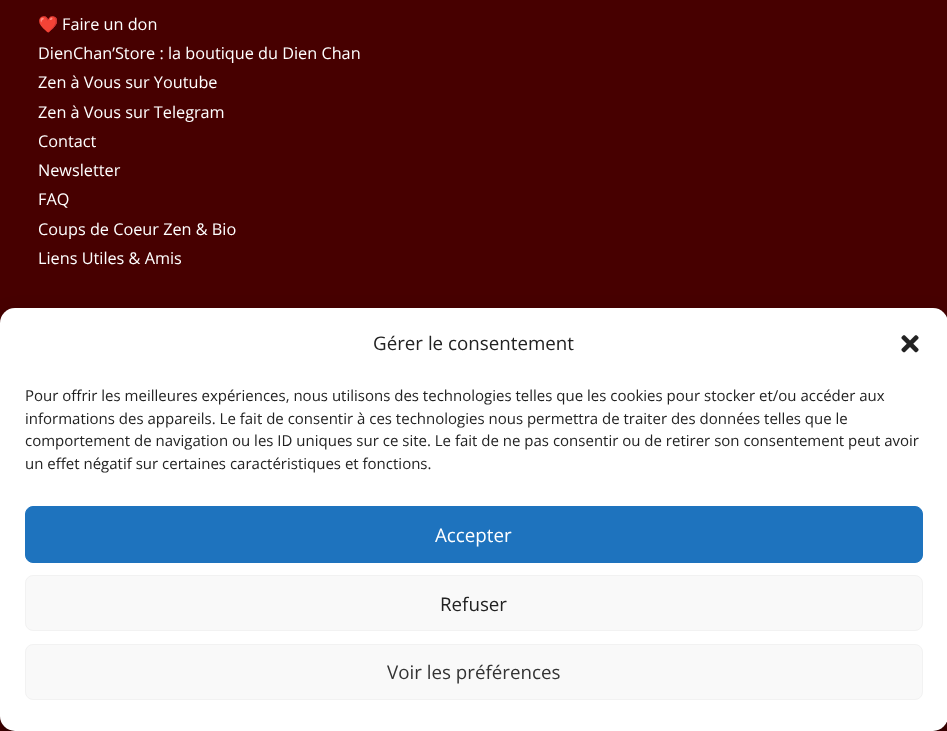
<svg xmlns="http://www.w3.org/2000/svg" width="947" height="731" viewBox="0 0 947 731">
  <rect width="100%" height="100%" fill="#470000"/>
  <rect y="315" width="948" height="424" rx="15" fill="#0000003b" filter="blur(4px)"/>
  <rect y="320" width="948" height="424" rx="15" fill="#00000030" filter="blur(12.5px)"/>
  <rect y="308" width="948" height="423" rx="15" fill="#fff"/>
  <image x="901" y="335" width="18" height="18" href="img/1.png"/>
  <rect x="25.5" y="506.5" width="897" height="56" rx="7.5" fill="#1e73be" stroke="#1e73be"/>
  <rect x="25.5" y="575.5" width="897" height="55" rx="7.5" fill="#f9f9f9" stroke="#f2f2f2"/>
  <rect x="25.5" y="644.5" width="897" height="55" rx="7.5" fill="#f9f9f9" stroke="#f2f2f2"/>
  <text x="38" y="30" font-family="Noto Color Emoji" font-size="16.25" fill="#fff">❤️</text>
  <g font-family="Open Sans" font-size="16.25" fill="#fff">
    <text x="62" y="30">Faire un don</text>
    <text x="38" y="59">DienChan’Store : la boutique du Dien Chan</text>
    <text x="38" y="88">Zen à Vous sur Youtube</text>
    <text x="38" y="118">Zen à Vous sur Telegram</text>
    <text x="38" y="147">Contact</text>
    <text x="38" y="176">Newsletter</text>
    <text x="38" y="205">FAQ</text>
    <text x="38" y="235">Coups de Coeur Zen &amp; Bio</text>
    <text x="38" y="264">Liens Utiles &amp; Amis</text>
  </g>
  <text x="373" y="350" font-family="Open Sans" font-size="18.75" fill="#222">Gérer le consentement</text>
  <g font-family="Open Sans" font-size="15" fill="#222">
    <text x="25" y="401">Pour offrir les meilleures expériences, nous utilisons des technologies telles que les cookies pour stocker et/ou accéder aux</text>
    <text x="25" y="424">informations des appareils. Le fait de consentir à ces technologies nous permettra de traiter des données telles que le</text>
    <text x="25" y="446">comportement de navigation ou les ID uniques sur ce site. Le fait de ne pas consentir ou de retirer son consentement peut avoir</text>
    <text x="25" y="469">un effet négatif sur certaines caractéristiques et fonctions.</text>
  </g>
  <text x="435" y="542" font-family="Open Sans" font-size="18.75" fill="#fff">Accepter</text>
  <text x="440" y="611" font-family="Open Sans" font-size="18.75" fill="#222">Refuser</text>
  <text x="387" y="679" font-family="Open Sans" font-size="18.75" fill="#333">Voir les préférences</text>
</svg>
